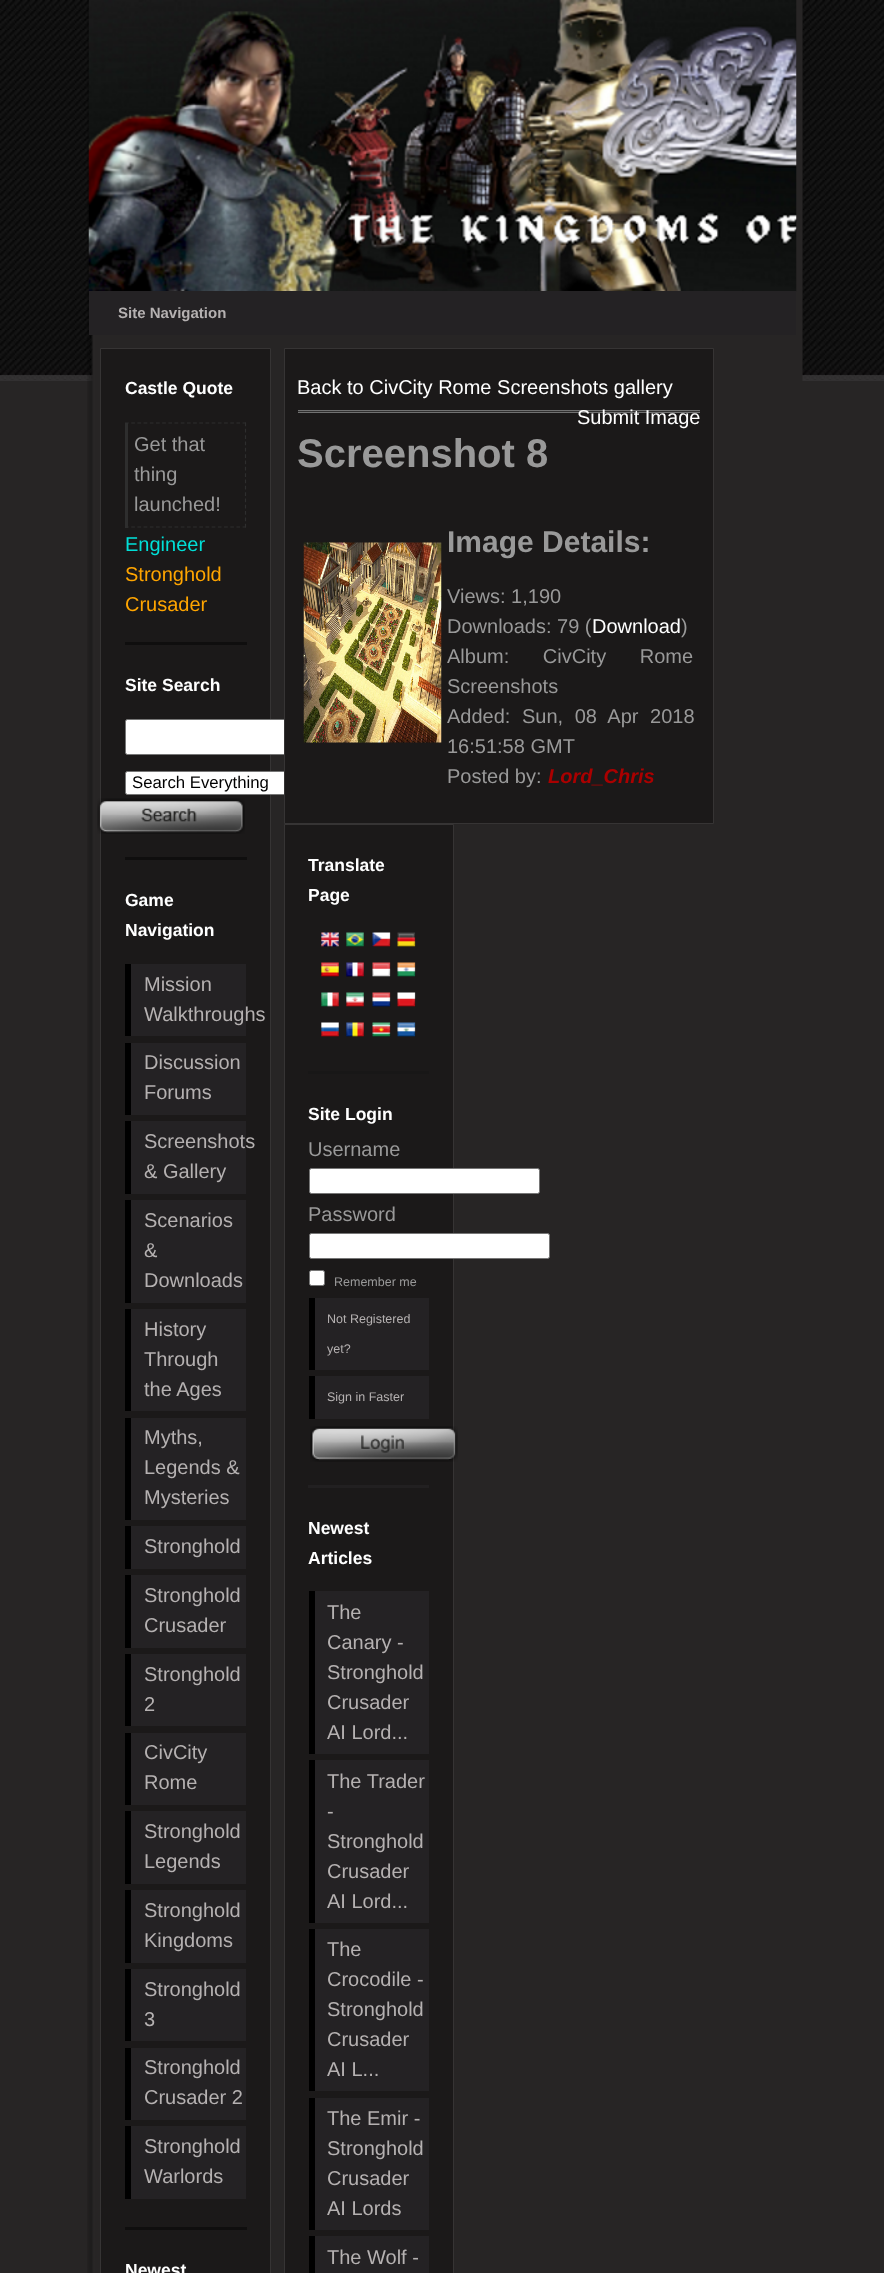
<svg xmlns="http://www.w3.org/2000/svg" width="884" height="2273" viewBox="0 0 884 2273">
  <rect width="100%" height="100%" fill="#272525"/>
  <image x="0" y="0" width="884" height="381" href="img/1.png"/>
  <image x="87" y="0" width="716" height="2273" href="img/2.png"/>
  <image x="88" y="0" width="709" height="292" href="img/3.png"/>
  <path d="M89 291h707v44H89z" fill="#242224"/>
  <path d="M100.5 348.5h170v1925H100.5z" fill="#1b1919" stroke="#363434"/>
  <path d="M125 423H246" fill="none" stroke="#2e2e2e" stroke-width="1.2" stroke-dasharray="3.75 2.44"/>
  <path d="M245.5 422.5V527.5" fill="none" stroke="#2e2e2e" stroke-width="1.2" stroke-dasharray="3.75 2.58"/>
  <path d="M125 527H246" fill="none" stroke="#2e2e2e" stroke-width="1.2" stroke-dasharray="3.75 2.44"/>
  <path d="M125 423h3v105H125z" fill="#2e2e2e"/>
  <path d="M125 642h122v3H125z" fill="#0f0e0e"/>
  <rect x="125.5" y="719.5" width="265" height="35" rx="2" fill="#fff" stroke="#767676"/>
  <rect x="125.5" y="771.5" width="213" height="23" rx="2" fill="#fff" stroke="#767676"/>
  <image x="97" y="798" width="148" height="36" href="img/4.png"/>
  <path d="M125 857h122v3H125z" fill="#0f0e0e"/>
  <path d="M125 964h6v72H125z" fill="#000"/>
  <path d="M131 964h115v72H131z" fill="#242224"/>
  <path d="M125 1043h6v72H125z" fill="#000"/>
  <path d="M131 1043h115v72H131z" fill="#242224"/>
  <path d="M125 1121h6v73H125z" fill="#000"/>
  <path d="M131 1121h115v73H131z" fill="#242224"/>
  <path d="M125 1200h6v103H125z" fill="#000"/>
  <path d="M131 1200h115v103H131z" fill="#242224"/>
  <path d="M125 1309h6v102H125z" fill="#000"/>
  <path d="M131 1309h115v102H131z" fill="#242224"/>
  <path d="M125 1418h6v102H125z" fill="#000"/>
  <path d="M131 1418h115v102H131z" fill="#242224"/>
  <path d="M125 1526h6v43H125z" fill="#000"/>
  <path d="M131 1526h115v43H131z" fill="#242224"/>
  <path d="M125 1575h6v73H125z" fill="#000"/>
  <path d="M131 1575h115v73H131z" fill="#242224"/>
  <path d="M125 1654h6v72H125z" fill="#000"/>
  <path d="M131 1654h115v72H131z" fill="#242224"/>
  <path d="M125 1733h6v72H125z" fill="#000"/>
  <path d="M131 1733h115v72H131z" fill="#242224"/>
  <path d="M125 1811h6v73H125z" fill="#000"/>
  <path d="M131 1811h115v73H131z" fill="#242224"/>
  <path d="M125 1890h6v73H125z" fill="#000"/>
  <path d="M131 1890h115v73H131z" fill="#242224"/>
  <path d="M125 1969h6v72H125z" fill="#000"/>
  <path d="M131 1969h115v72H131z" fill="#242224"/>
  <path d="M125 2048h6v72H125z" fill="#000"/>
  <path d="M131 2048h115v72H131z" fill="#242224"/>
  <path d="M125 2126h6v73H125z" fill="#000"/>
  <path d="M131 2126h115v73H131z" fill="#242224"/>
  <path d="M125 2227h122v3H125z" fill="#0f0e0e"/>
  <path d="M284.5 348.5h429v475H284.5z" fill="#1b1919" stroke="#363434"/>
  <path d="M298 410h402v3H298z" fill="#717171"/>
  <path d="M298 411h402v1H298z" fill="#313030"/>
  <image x="303" y="542" width="139" height="201" href="img/5.png"/>
  <path d="M284.5 824.5h169v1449H284.5z" fill="#1b1919" stroke="#363434"/>
  <image x="321" y="932" width="18" height="15" href="img/6.png"/>
  <image x="346" y="932" width="18" height="15" href="img/7.png"/>
  <image x="372" y="932" width="19" height="15" href="img/8.png"/>
  <image x="397" y="932" width="19" height="15" href="img/9.png"/>
  <image x="321" y="962" width="18" height="15" href="img/10.png"/>
  <image x="346" y="962" width="18" height="15" href="img/11.png"/>
  <image x="372" y="962" width="19" height="15" href="img/12.png"/>
  <image x="397" y="962" width="19" height="15" href="img/13.png"/>
  <image x="321" y="992" width="18" height="15" href="img/14.png"/>
  <image x="346" y="992" width="18" height="15" href="img/15.png"/>
  <image x="372" y="992" width="19" height="15" href="img/16.png"/>
  <image x="397" y="992" width="19" height="15" href="img/17.png"/>
  <image x="321" y="1022" width="18" height="15" href="img/18.png"/>
  <image x="346" y="1022" width="18" height="15" href="img/19.png"/>
  <image x="372" y="1022" width="19" height="15" href="img/20.png"/>
  <image x="397" y="1022" width="19" height="15" href="img/21.png"/>
  <path d="M308 1071h121v3H308z" fill="#181717"/>
  <rect x="309.5" y="1168.5" width="230" height="25" rx="2" fill="#fff" stroke="#767676"/>
  <rect x="309.5" y="1233.5" width="240" height="25" rx="2" fill="#fff" stroke="#767676"/>
  <rect x="309.5" y="1270.5" width="15" height="15" rx="2" fill="#fff" stroke="#767676"/>
  <path d="M309 1298h6v72H309z" fill="#000"/>
  <path d="M315 1298h114v72H315z" fill="#242224"/>
  <path d="M309 1376h6v43H309z" fill="#000"/>
  <path d="M315 1376h114v43H315z" fill="#242224"/>
  <image x="310" y="1426" width="148" height="36" href="img/22.png"/>
  <path d="M308 1485h121v3H308z" fill="#222021"/>
  <path d="M309 1591h6v163H309z" fill="#000"/>
  <path d="M315 1591h114v163H315z" fill="#242224"/>
  <path d="M309 1760h6v163H309z" fill="#000"/>
  <path d="M315 1760h114v163H315z" fill="#242224"/>
  <path d="M309 1929h6v162H309z" fill="#000"/>
  <path d="M315 1929h114v162H315z" fill="#242224"/>
  <path d="M309 2098h6v132H309z" fill="#000"/>
  <path d="M315 2098h114v132H315z" fill="#242224"/>
  <path d="M309 2236h6v37H309z" fill="#000"/>
  <path d="M315 2236h114v37H315z" fill="#242224"/>
  <text x="118" y="318" font-family="Liberation Sans" font-size="15" font-weight="bold" fill="#b5b1b1">Site Navigation</text>
  <text x="125" y="394" font-family="Liberation Sans" font-size="17.5" font-weight="bold" fill="#fff">Castle Quote</text>
  <g font-family="Liberation Sans" font-size="20" fill="#999">
    <text x="134" y="451">Get that</text>
    <text x="134" y="481">thing</text>
    <text x="134" y="511">launched!</text>
  </g>
  <text x="125" y="551" font-family="Liberation Sans" font-size="20" fill="#01dfd7">Engineer</text>
  <g font-family="Liberation Sans" font-size="20" fill="#ffa500">
    <text x="125" y="581">Stronghold</text>
    <text x="125" y="611">Crusader</text>
  </g>
  <text x="125" y="691" font-family="Liberation Sans" font-size="17.5" font-weight="bold" fill="#fff">Site Search</text>
  <text x="132" y="788" font-family="Liberation Sans" font-size="16.75" fill="#000">Search Everything</text>
  <g font-family="Liberation Sans" font-size="17.5" font-weight="bold" fill="#fff">
    <text x="125" y="906">Game</text>
    <text x="125" y="936">Navigation</text>
  </g>
  <g font-family="Liberation Sans" font-size="20" fill="#b5b1b1">
    <text x="144" y="991">Mission</text>
    <text x="144" y="1021">Walkthroughs</text>
    <text x="144" y="1069">Discussion</text>
    <text x="144" y="1099">Forums</text>
    <text x="144" y="1148">Screenshots</text>
    <text x="144" y="1178">&amp; Gallery</text>
    <text x="144" y="1227">Scenarios</text>
    <text x="144" y="1257">&amp;</text>
    <text x="144" y="1287">Downloads</text>
    <text x="144" y="1336">History</text>
    <text x="144" y="1366">Through</text>
    <text x="144" y="1396">the Ages</text>
    <text x="144" y="1444">Myths,</text>
    <text x="144" y="1474">Legends &amp;</text>
    <text x="144" y="1504">Mysteries</text>
    <text x="144" y="1553">Stronghold</text>
    <text x="144" y="1602">Stronghold</text>
    <text x="144" y="1632">Crusader</text>
    <text x="144" y="1681">Stronghold</text>
    <text x="144" y="1711">2</text>
    <text x="144" y="1759">CivCity</text>
    <text x="144" y="1789">Rome</text>
    <text x="144" y="1838">Stronghold</text>
    <text x="144" y="1868">Legends</text>
    <text x="144" y="1917">Stronghold</text>
    <text x="144" y="1947">Kingdoms</text>
    <text x="144" y="1996">Stronghold</text>
    <text x="144" y="2026">3</text>
    <text x="144" y="2074">Stronghold</text>
    <text x="144" y="2104">Crusader 2</text>
    <text x="144" y="2153">Stronghold</text>
    <text x="144" y="2183">Warlords</text>
  </g>
  <text x="125" y="2276" font-family="Liberation Sans" font-size="17.5" font-weight="bold" fill="#fff">Newest</text>
  <g font-family="Liberation Sans" font-size="20" fill="#fff">
    <text x="297" y="394">Back to CivCity Rome Screenshots gallery</text>
    <text x="577" y="424">Submit Image</text>
  </g>
  <text x="297" y="467" font-family="Liberation Sans" font-size="40" font-weight="bold" fill="#999">Screenshot 8</text>
  <text x="447" y="552" font-family="Liberation Sans" font-size="30" font-weight="bold" fill="#999">Image Details:</text>
  <g font-family="Liberation Sans" font-size="20" fill="#999">
    <text x="447" y="603">Views: 1,190</text>
    <text x="447" y="633">Downloads: 79 (</text>
  </g>
  <text x="592" y="633" font-family="Liberation Sans" font-size="20" fill="#fff">Download</text>
  <g font-family="Liberation Sans" font-size="20" fill="#999">
    <text x="681" y="633">)</text>
    <text x="447" y="663" word-spacing="28">Album: CivCity Rome</text>
    <text x="447" y="693">Screenshots</text>
    <text x="447" y="723" word-spacing="6">Added: Sun, 08 Apr 2018</text>
    <text x="447" y="753">16:51:58 GMT</text>
    <text x="447" y="783">Posted by:</text>
  </g>
  <text x="548" y="783" font-family="Liberation Sans" font-size="20" font-weight="bold" font-style="italic" fill="#a00">Lord_Chris</text>
  <g font-family="Liberation Sans" font-size="17.5" font-weight="bold" fill="#fff">
    <text x="308" y="871">Translate</text>
    <text x="308" y="901">Page</text>
    <text x="308" y="1120">Site Login</text>
  </g>
  <g font-family="Liberation Sans" font-size="20" fill="#999">
    <text x="308" y="1156">Username</text>
    <text x="308" y="1221">Password</text>
  </g>
  <text x="334" y="1286" font-family="Liberation Sans" font-size="12.5" fill="#999">Remember me</text>
  <g font-family="Liberation Sans" font-size="12.5" fill="#b5b1b1">
    <text x="327" y="1323">Not Registered</text>
    <text x="327" y="1353">yet?</text>
    <text x="327" y="1401">Sign in Faster</text>
  </g>
  <g font-family="Liberation Sans" font-size="17.5" font-weight="bold" fill="#fff">
    <text x="308" y="1534">Newest</text>
    <text x="308" y="1564">Articles</text>
  </g>
  <g font-family="Liberation Sans" font-size="20" fill="#b5b1b1">
    <text x="327" y="1619">The</text>
    <text x="327" y="1649">Canary -</text>
    <text x="327" y="1679">Stronghold</text>
    <text x="327" y="1709">Crusader</text>
    <text x="327" y="1739">AI Lord...</text>
    <text x="327" y="1788">The Trader</text>
    <text x="327" y="1818">-</text>
    <text x="327" y="1848">Stronghold</text>
    <text x="327" y="1878">Crusader</text>
    <text x="327" y="1908">AI Lord...</text>
    <text x="327" y="1956">The</text>
    <text x="327" y="1986">Crocodile -</text>
    <text x="327" y="2016">Stronghold</text>
    <text x="327" y="2046">Crusader</text>
    <text x="327" y="2076">AI L...</text>
    <text x="327" y="2125">The Emir -</text>
    <text x="327" y="2155">Stronghold</text>
    <text x="327" y="2185">Crusader</text>
    <text x="327" y="2215">AI Lords</text>
    <text x="327" y="2264">The Wolf -</text>
  </g>
</svg>
